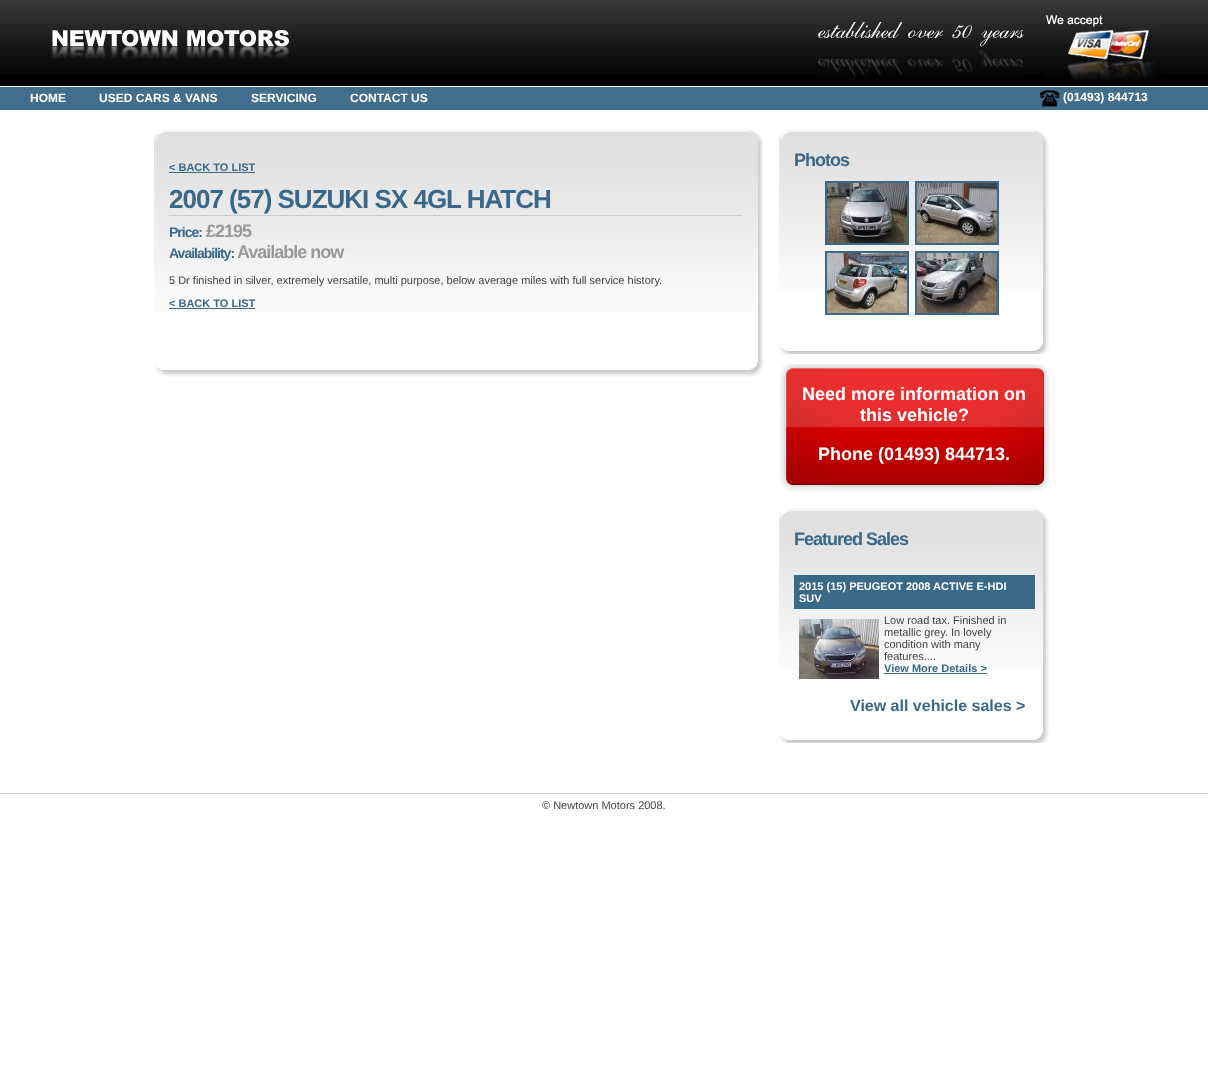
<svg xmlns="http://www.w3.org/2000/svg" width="1208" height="1084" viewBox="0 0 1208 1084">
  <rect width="100%" height="100%" fill="#fff"/>
  <path d="M0 75h1208v11H0z" fill="#000"/>
  <image x="0" y="0" width="1208" height="75" href="img/1.png"/>
  <image x="51" y="24" width="239" height="35" href="img/2.png"/>
  <image x="817" y="17" width="207" height="63" href="img/3.png"/>
  <image x="1046" y="8" width="115" height="72" href="img/4.png"/>
  <path d="M0 87h1208v23H0z" fill="#416e8c"/>
  <image x="1039" y="90" width="21" height="17" href="img/5.png"/>
  <image x="758" y="312" width="6" height="48" href="img/6.png"/>
  <image x="154" y="130" width="610" height="182" href="img/7.png"/>
  <path d="M169 172h86v1H169z" fill="#3a6889"/>
  <path d="M169 215h573v1H169z" fill="#ccc"/>
  <path d="M169 308h86v1H169z" fill="#3a6889"/>
  <image x="154" y="360" width="610" height="17" href="img/8.png"/>
  <image x="1043" y="291" width="6" height="45" href="img/9.png"/>
  <image x="779" y="130" width="270" height="161" href="img/10.png"/>
  <path d="M826 182h82v62H826z" fill="none" stroke="#3a6889" stroke-width="2"/>
  <image x="827" y="183" width="80" height="60" href="img/11.png"/>
  <path d="M916 182h82v62H916z" fill="none" stroke="#3a6889" stroke-width="2"/>
  <image x="917" y="183" width="80" height="60" href="img/12.png"/>
  <path d="M826 252h82v62H826z" fill="none" stroke="#3a6889" stroke-width="2"/>
  <image x="827" y="253" width="80" height="60" href="img/13.png"/>
  <path d="M916 252h82v62H916z" fill="none" stroke="#3a6889" stroke-width="2"/>
  <image x="917" y="253" width="80" height="60" href="img/14.png"/>
  <image x="779" y="336" width="270" height="18" href="img/15.png"/>
  <image x="779" y="364" width="271" height="128" href="img/16.png"/>
  <image x="1043" y="670" width="6" height="55" href="img/17.png"/>
  <image x="779" y="509" width="270" height="161" href="img/10.png"/>
  <path d="M794 575h241v34H794z" fill="#3a6889"/>
  <image x="799" y="619" width="80" height="60" href="img/18.png"/>
  <path d="M884 673h103v1H884z" fill="#3a6889"/>
  <image x="779" y="725" width="270" height="18" href="img/15.png"/>
  <path d="M0 793h1208v1H0z" fill="#ccc"/>
  <g font-family="Liberation Sans" font-size="12" font-weight="bold" fill="#fff">
    <text x="30" y="102">HOME</text>
    <text x="99" y="102">USED CARS &amp; VANS</text>
    <text x="251" y="102">SERVICING</text>
    <text x="350" y="102">CONTACT US</text>
    <text x="1063" y="101">(01493) 844713</text>
  </g>
  <text x="169" y="171" font-family="Liberation Sans" font-size="11" font-weight="bold" fill="#3a6889">&lt; BACK TO LIST</text>
  <text x="169" y="208" font-family="Liberation Sans" font-size="26" font-weight="bold" letter-spacing="-1" fill="#3a6889">2007 (57) SUZUKI SX 4GL HATCH</text>
  <text x="169" y="237" font-family="Liberation Sans" font-size="14" font-weight="bold" letter-spacing="-1" fill="#3a6889">Price:</text>
  <text x="206" y="237" font-family="Liberation Sans" font-size="18" font-weight="bold" letter-spacing="-1" fill="#999">£2195</text>
  <text x="169" y="258" font-family="Liberation Sans" font-size="14" font-weight="bold" letter-spacing="-1" fill="#3a6889">Availability:</text>
  <text x="237" y="258" font-family="Liberation Sans" font-size="18" font-weight="bold" letter-spacing="-1" fill="#999">Available now</text>
  <text x="169" y="284" font-family="Liberation Sans" font-size="11" fill="#424242">5 Dr finished in silver, extremely versatile, multi purpose, below average miles with full service history.</text>
  <text x="169" y="307" font-family="Liberation Sans" font-size="11" font-weight="bold" fill="#3a6889">&lt; BACK TO LIST</text>
  <text x="794" y="166" font-family="Liberation Sans" font-size="18" font-weight="bold" letter-spacing="-1" fill="#3a6889">Photos</text>
  <g font-family="Liberation Sans" font-size="18" font-weight="bold" fill="#fff">
    <text x="802" y="400">Need more information on</text>
    <text x="860" y="421">this vehicle?</text>
    <text x="818" y="460">Phone (01493) 844713.</text>
  </g>
  <text x="794" y="545" font-family="Liberation Sans" font-size="18" font-weight="bold" letter-spacing="-1" fill="#3a6889">Featured Sales</text>
  <g font-family="Liberation Sans" font-size="11" font-weight="bold" fill="#fff">
    <text x="799" y="590">2015 (15) PEUGEOT 2008 ACTIVE E-HDI</text>
    <text x="799" y="602">SUV</text>
  </g>
  <g font-family="Liberation Sans" font-size="11" fill="#424242">
    <text x="884" y="624">Low road tax. Finished in</text>
    <text x="884" y="636">metallic grey. In lovely</text>
    <text x="884" y="648">condition with many</text>
    <text x="884" y="660">features....</text>
  </g>
  <text x="884" y="672" font-family="Liberation Sans" font-size="11" font-weight="bold" fill="#3a6889">View More Details &gt;</text>
  <text x="850" y="711" font-family="Liberation Sans" font-size="16" font-weight="bold" fill="#3a6889">View all vehicle sales &gt;</text>
  <text x="542" y="809" font-family="Liberation Sans" font-size="11" fill="#424242">© Newtown Motors 2008.</text>
</svg>
